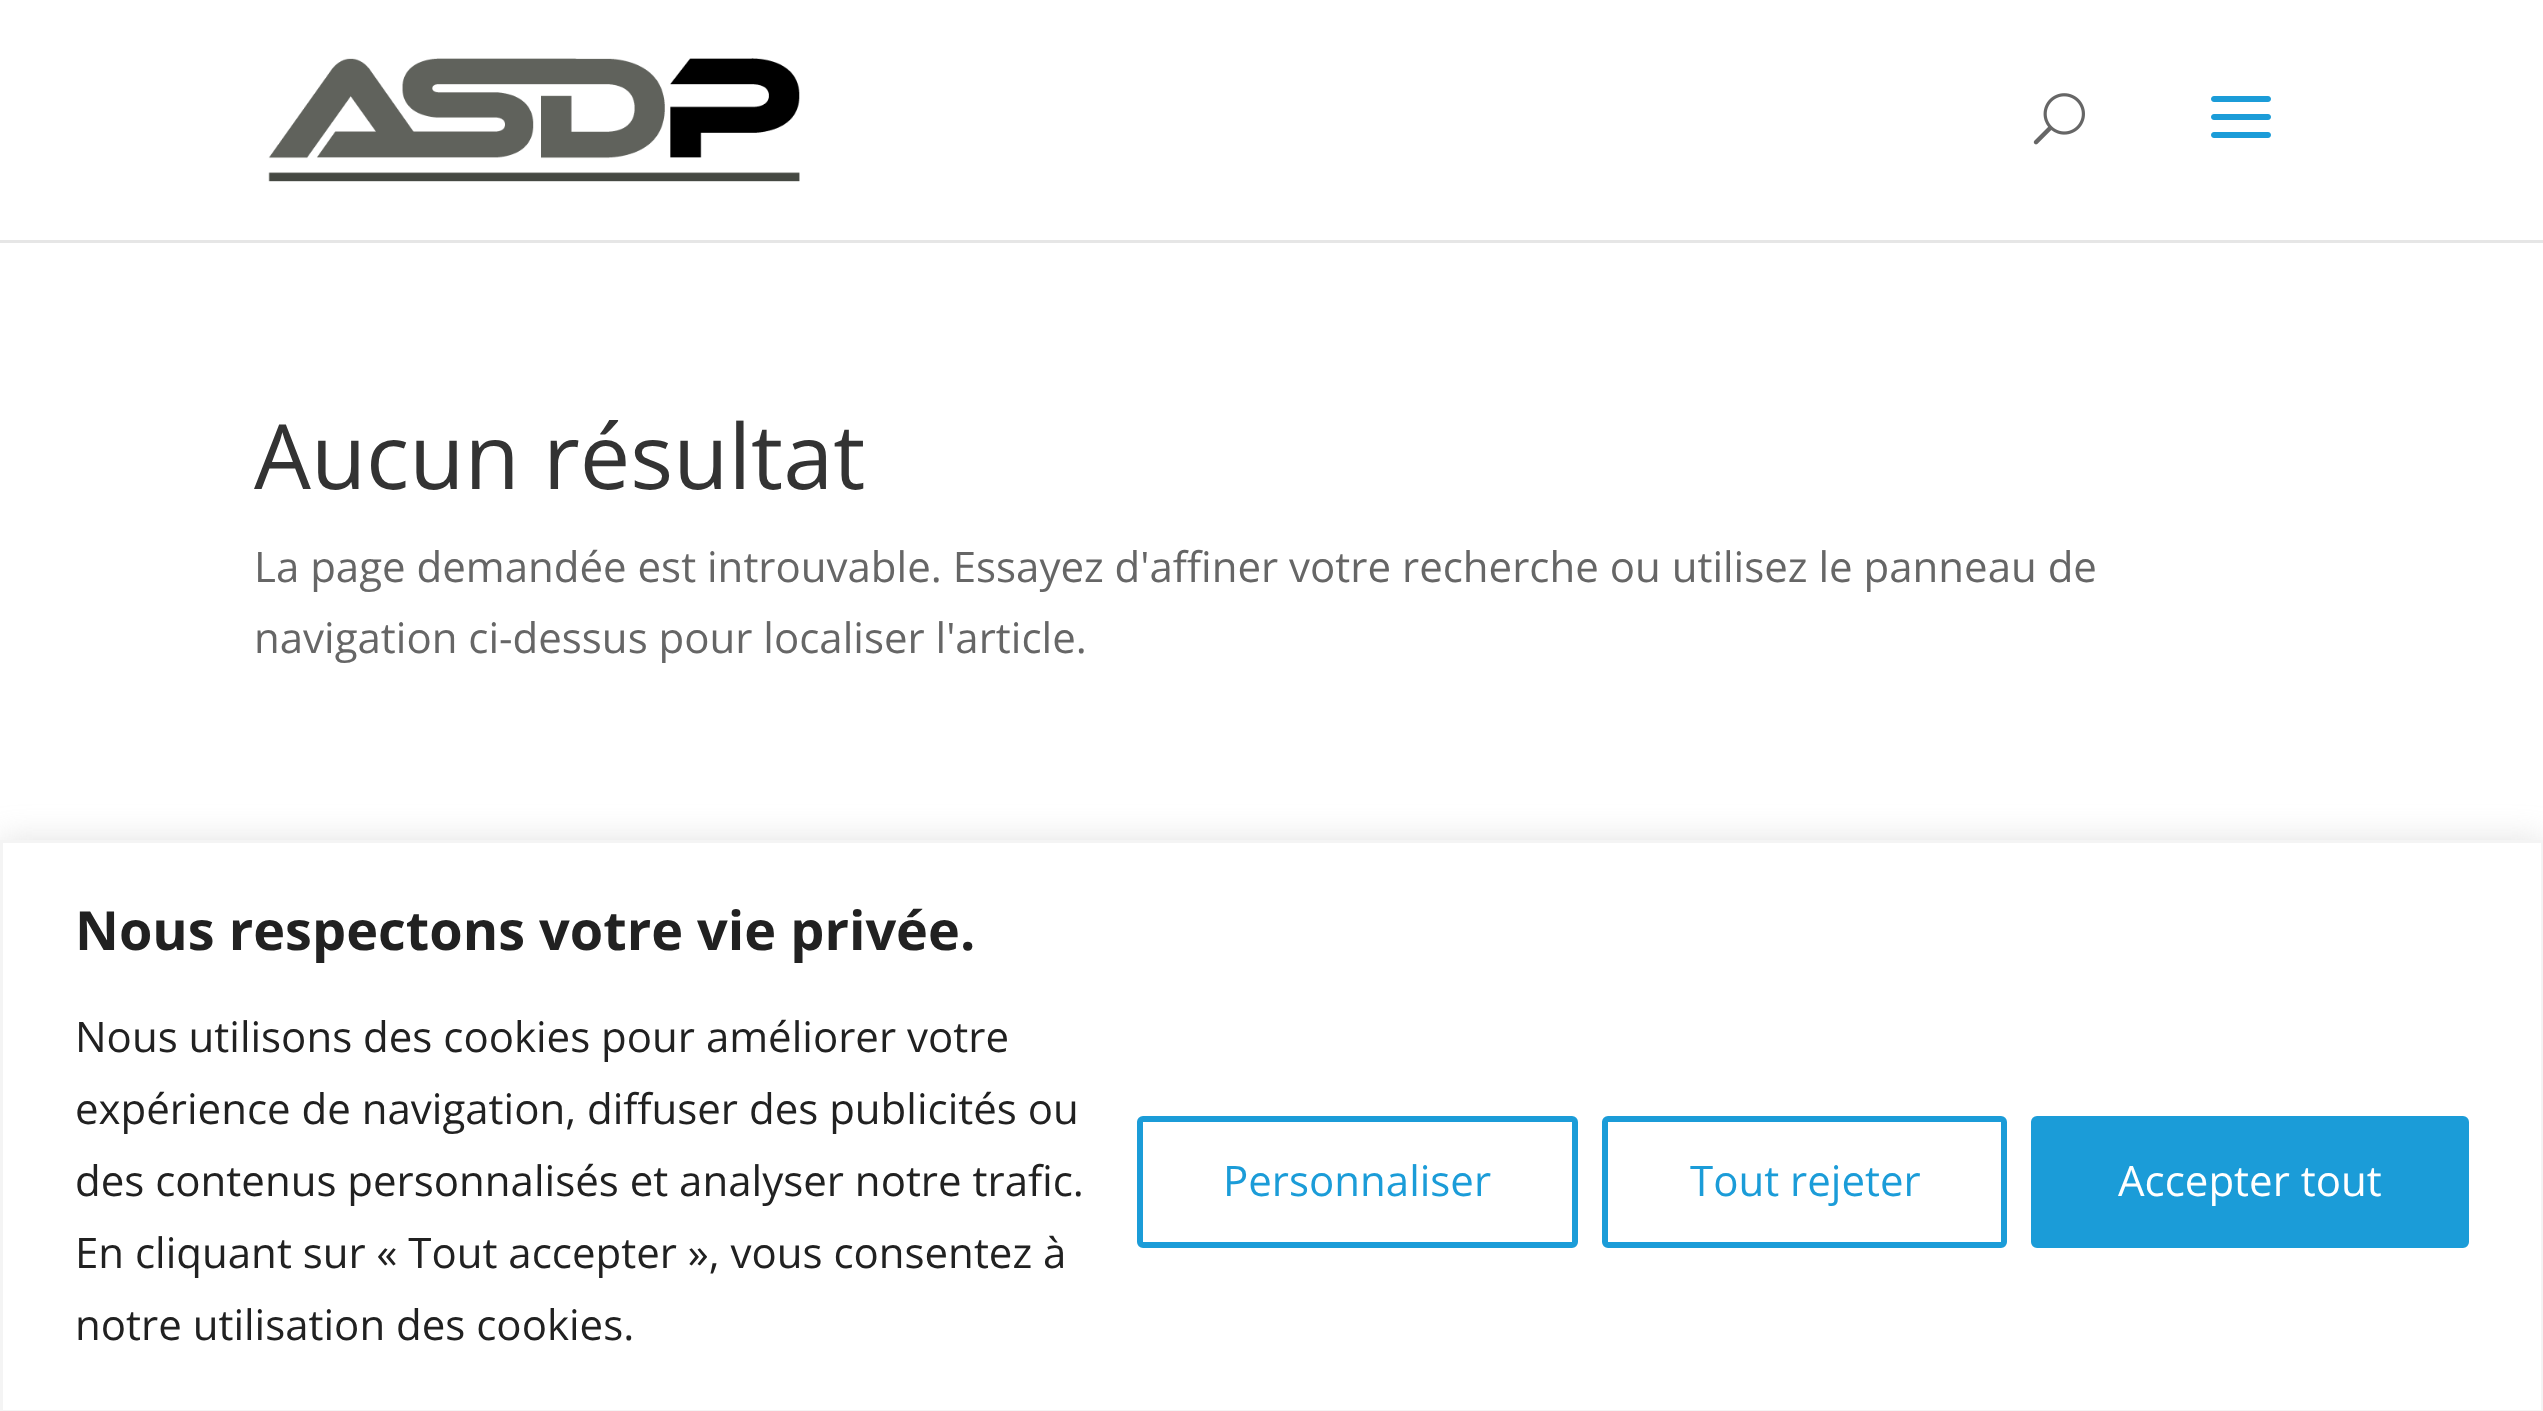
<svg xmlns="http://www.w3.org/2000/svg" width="2543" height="1411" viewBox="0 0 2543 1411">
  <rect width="100%" height="100%" fill="#fff"/>
  <path d="M0 240h2543v3H0z" fill="#e6e6e6"/>
  <image x="268" y="58" width="532" height="124" href="img/1.png"/>
  <image x="2033" y="93" width="52" height="52" href="img/2.png"/>
  <image x="2211" y="96" width="60" height="42" href="img/3.png"/>
  <path d="M0 837h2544v573H0z" fill="#acabab4d" filter="blur(15px)"/>
  <path d="M1.5 841.5h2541v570H1.5z" fill="#fff" stroke="#f4f4f4" stroke-width="3"/>
  <rect x="1140" y="1119" width="435" height="126" rx="3" fill="none" stroke="#1b9cd8" stroke-width="6"/>
  <rect x="1605" y="1119" width="399" height="126" rx="3" fill="none" stroke="#1b9cd8" stroke-width="6"/>
  <rect x="2034" y="1119" width="432" height="126" rx="3" fill="#1b9cd8" stroke="#1b9cd8" stroke-width="6"/>
  <text x="254" y="489" font-family="Open Sans" font-size="90" fill="#333">Aucun résultat</text>
  <g font-family="Open Sans" font-size="42" fill="#666">
    <text x="254" y="582">La page demandée est introuvable. Essayez d'affiner votre recherche ou utilisez le panneau de</text>
    <text x="254" y="653">navigation ci-dessus pour localiser l'article.</text>
  </g>
  <text x="75" y="950" font-family="Open Sans" font-size="54" font-weight="bold" fill="#212121">Nous respectons votre vie privée.</text>
  <g font-family="Open Sans" font-size="42" fill="#212121">
    <text x="75" y="1052">Nous utilisons des cookies pour améliorer votre</text>
    <text x="75" y="1124">expérience de navigation, diffuser des publicités ou</text>
    <text x="75" y="1196">des contenus personnalisés et analyser notre trafic.</text>
    <text x="75" y="1268">En cliquant sur « Tout accepter », vous consentez à</text>
    <text x="75" y="1340">notre utilisation des cookies.</text>
  </g>
  <g font-family="Open Sans" font-size="42" fill="#1b9cd8">
    <text x="1223" y="1196">Personnaliser</text>
    <text x="1690" y="1196">Tout rejeter</text>
  </g>
  <text x="2118" y="1196" font-family="Open Sans" font-size="42" fill="#fff">Accepter tout</text>
</svg>
